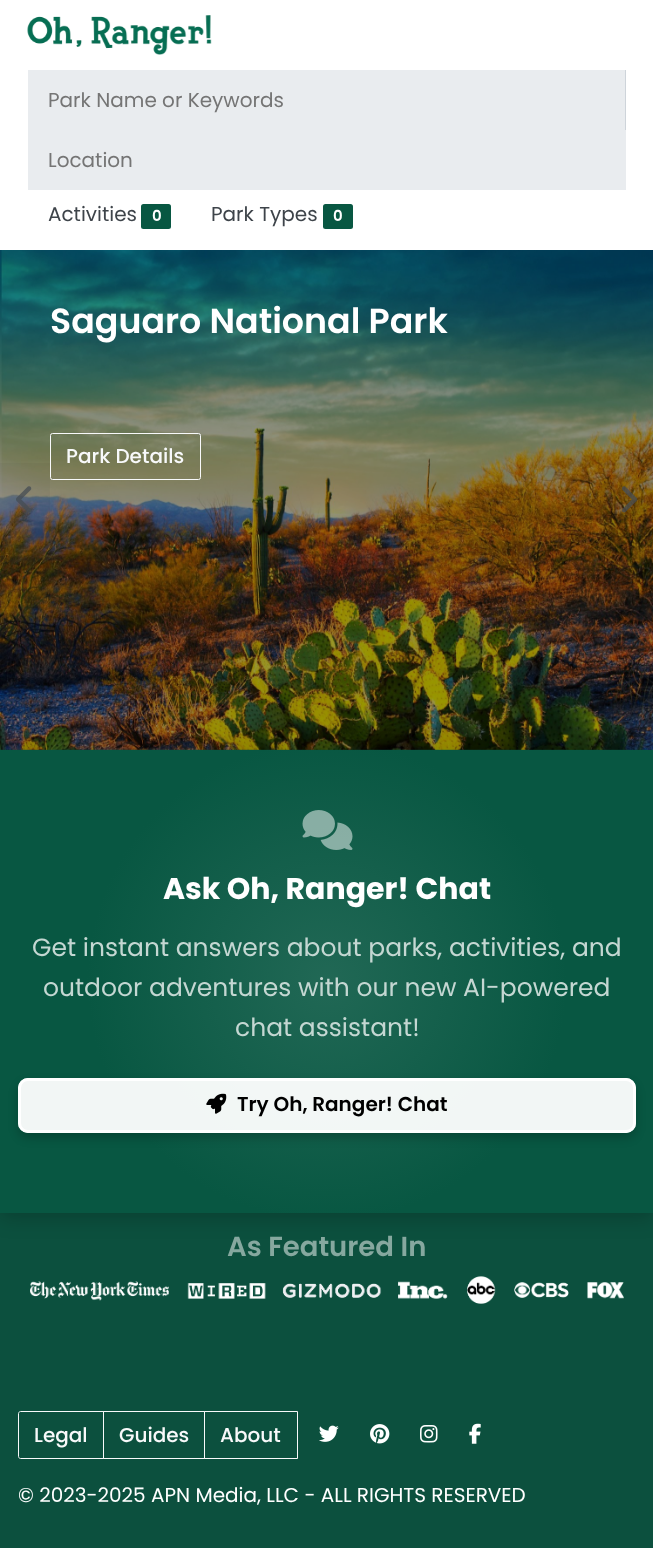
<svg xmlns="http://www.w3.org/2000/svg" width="653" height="1548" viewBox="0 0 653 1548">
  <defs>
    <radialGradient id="g1" gradientUnits="userSpaceOnUse" cx="327" cy="981" r="400"><stop offset="0" stop-color="#216855"/><stop offset="0.6" stop-color="#085742"/></radialGradient>
    <clipPath id="clip1"><path d="M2 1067H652V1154H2ZM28 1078H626C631.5 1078 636 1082.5 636 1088V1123C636 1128.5 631.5 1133 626 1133H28C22.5 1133 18 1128.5 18 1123V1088C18 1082.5 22.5 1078 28 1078Z" clip-rule="evenodd"/></clipPath>
  </defs>
  <rect width="100%" height="100%" fill="#0c503e"/>
  <path d="M0 0h653v250H0z" fill="#fff"/>
  <image x="27" y="15" width="185" height="40" href="img/1.png"/>
  <path d="M28 70h597v60H28z" fill="#e9ecef"/>
  <path d="M625 70h1v60H625z" fill="#ced4da"/>
  <path d="M28 130h598v60H28z" fill="#e9ecef"/>
  <rect x="141" y="204" width="30" height="25" rx="2.5" fill="#085742"/>
  <rect x="323" y="204" width="30" height="25" rx="2.5" fill="#085742"/>
  <image x="0" y="250" width="653" height="500" href="img/2.png"/>
  <rect x="50.5" y="433.5" width="150" height="46" rx="2" fill="none" stroke="#f8f9fa"/>
  <path d="M0 463h50v75H0z" fill="#00000008"/>
  <image x="16" y="486" width="16" height="26" href="img/3.png"/>
  <path d="M604 463h49v75H604z" fill="#00000008"/>
  <image x="621" y="486" width="17" height="27" href="img/4.png"/>
  <path d="M0 755h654v463H0z" fill="#00000033" filter="blur(10px)"/>
  <path d="M0 750h653v463H0z" fill="url(#g1)"/>
  <image x="302" y="810" width="51" height="40" href="img/5.png"/>
  <g clip-path="url(#clip1)">
    <rect x="18" y="1083" width="618" height="55" rx="10" fill="#00000033" filter="blur(5px)"/>
  </g>
  <rect x="18" y="1078" width="618" height="55" rx="10" fill="#fffffff2"/>
  <rect x="19.5" y="1079.5" width="615" height="52" rx="8.5" fill="none" stroke="#fffffff2" stroke-width="3"/>
  <image x="206" y="1093" width="21" height="21" href="img/6.png"/>
  <image x="30" y="1276" width="594" height="28" href="img/7.png"/>
  <path d="M20.5 1411.5H103.5V1458.5H20.5C19.5 1458.5 18.5 1457.5 18.5 1456.5V1413.5C18.5 1412.5 19.5 1411.5 20.5 1411.5Z" fill="none" stroke="#f8f9fa"/>
  <path d="M103.5 1411.5h101v47H103.5z" fill="none" stroke="#f8f9fa"/>
  <path d="M204.5 1411.5h93v47H204.5z" fill="none" stroke="#f8f9fa"/>
  <image x="319" y="1425" width="20" height="17" href="img/8.png"/>
  <image x="370" y="1424" width="20" height="20" href="img/9.png"/>
  <image x="420" y="1425" width="18" height="18" href="img/10.png"/>
  <image x="469" y="1423" width="12" height="21" href="img/11.png"/>
  <g font-family="Poppins" font-size="20" fill="#757575">
    <text x="48" y="107">Park Name or Keywords</text>
    <text x="48" y="167">Location</text>
  </g>
  <text x="48" y="221" font-family="Poppins" font-size="20" fill="#3e444a">Activities</text>
  <text x="152" y="221" font-family="Poppins" font-size="15" font-weight="600" fill="#fff">0</text>
  <text x="211" y="221" font-family="Poppins" font-size="20" fill="#3e444a">Park Types</text>
  <text x="333" y="221" font-family="Poppins" font-size="15" font-weight="600" fill="#fff">0</text>
  <text x="50" y="333" font-family="Poppins" font-size="34.8" font-weight="600" fill="#fff">Saguaro National Park</text>
  <text x="66" y="463" font-family="Poppins" font-size="20" font-weight="500" fill="#f8f9fa">Park Details</text>
  <text x="163" y="899" font-family="Poppins" font-size="30" font-weight="bold" fill="#fff">Ask Oh, Ranger! Chat</text>
  <g font-family="Poppins" font-size="25" fill="#c4d7d2">
    <text x="32" y="956">Get instant answers about parks, activities, and</text>
    <text x="43" y="996">outdoor adventures with our new AI-powered</text>
    <text x="235" y="1036">chat assistant!</text>
  </g>
  <text x="237" y="1111" font-family="Poppins" font-size="20" font-weight="600" fill="#000">Try Oh, Ranger! Chat</text>
  <text x="227" y="1256" font-family="Poppins" font-size="27.5" font-weight="600" fill="#86a89f">As Featured In</text>
  <g font-family="Poppins" font-size="20" font-weight="500" fill="#f8f9fa">
    <text x="34" y="1442">Legal</text>
    <text x="119" y="1442">Guides</text>
    <text x="220" y="1442">About</text>
  </g>
  <text x="18" y="1502" font-family="Poppins" font-size="20" fill="#fff">© 2023-2025 APN Media, LLC - ALL RIGHTS RESERVED</text>
</svg>
